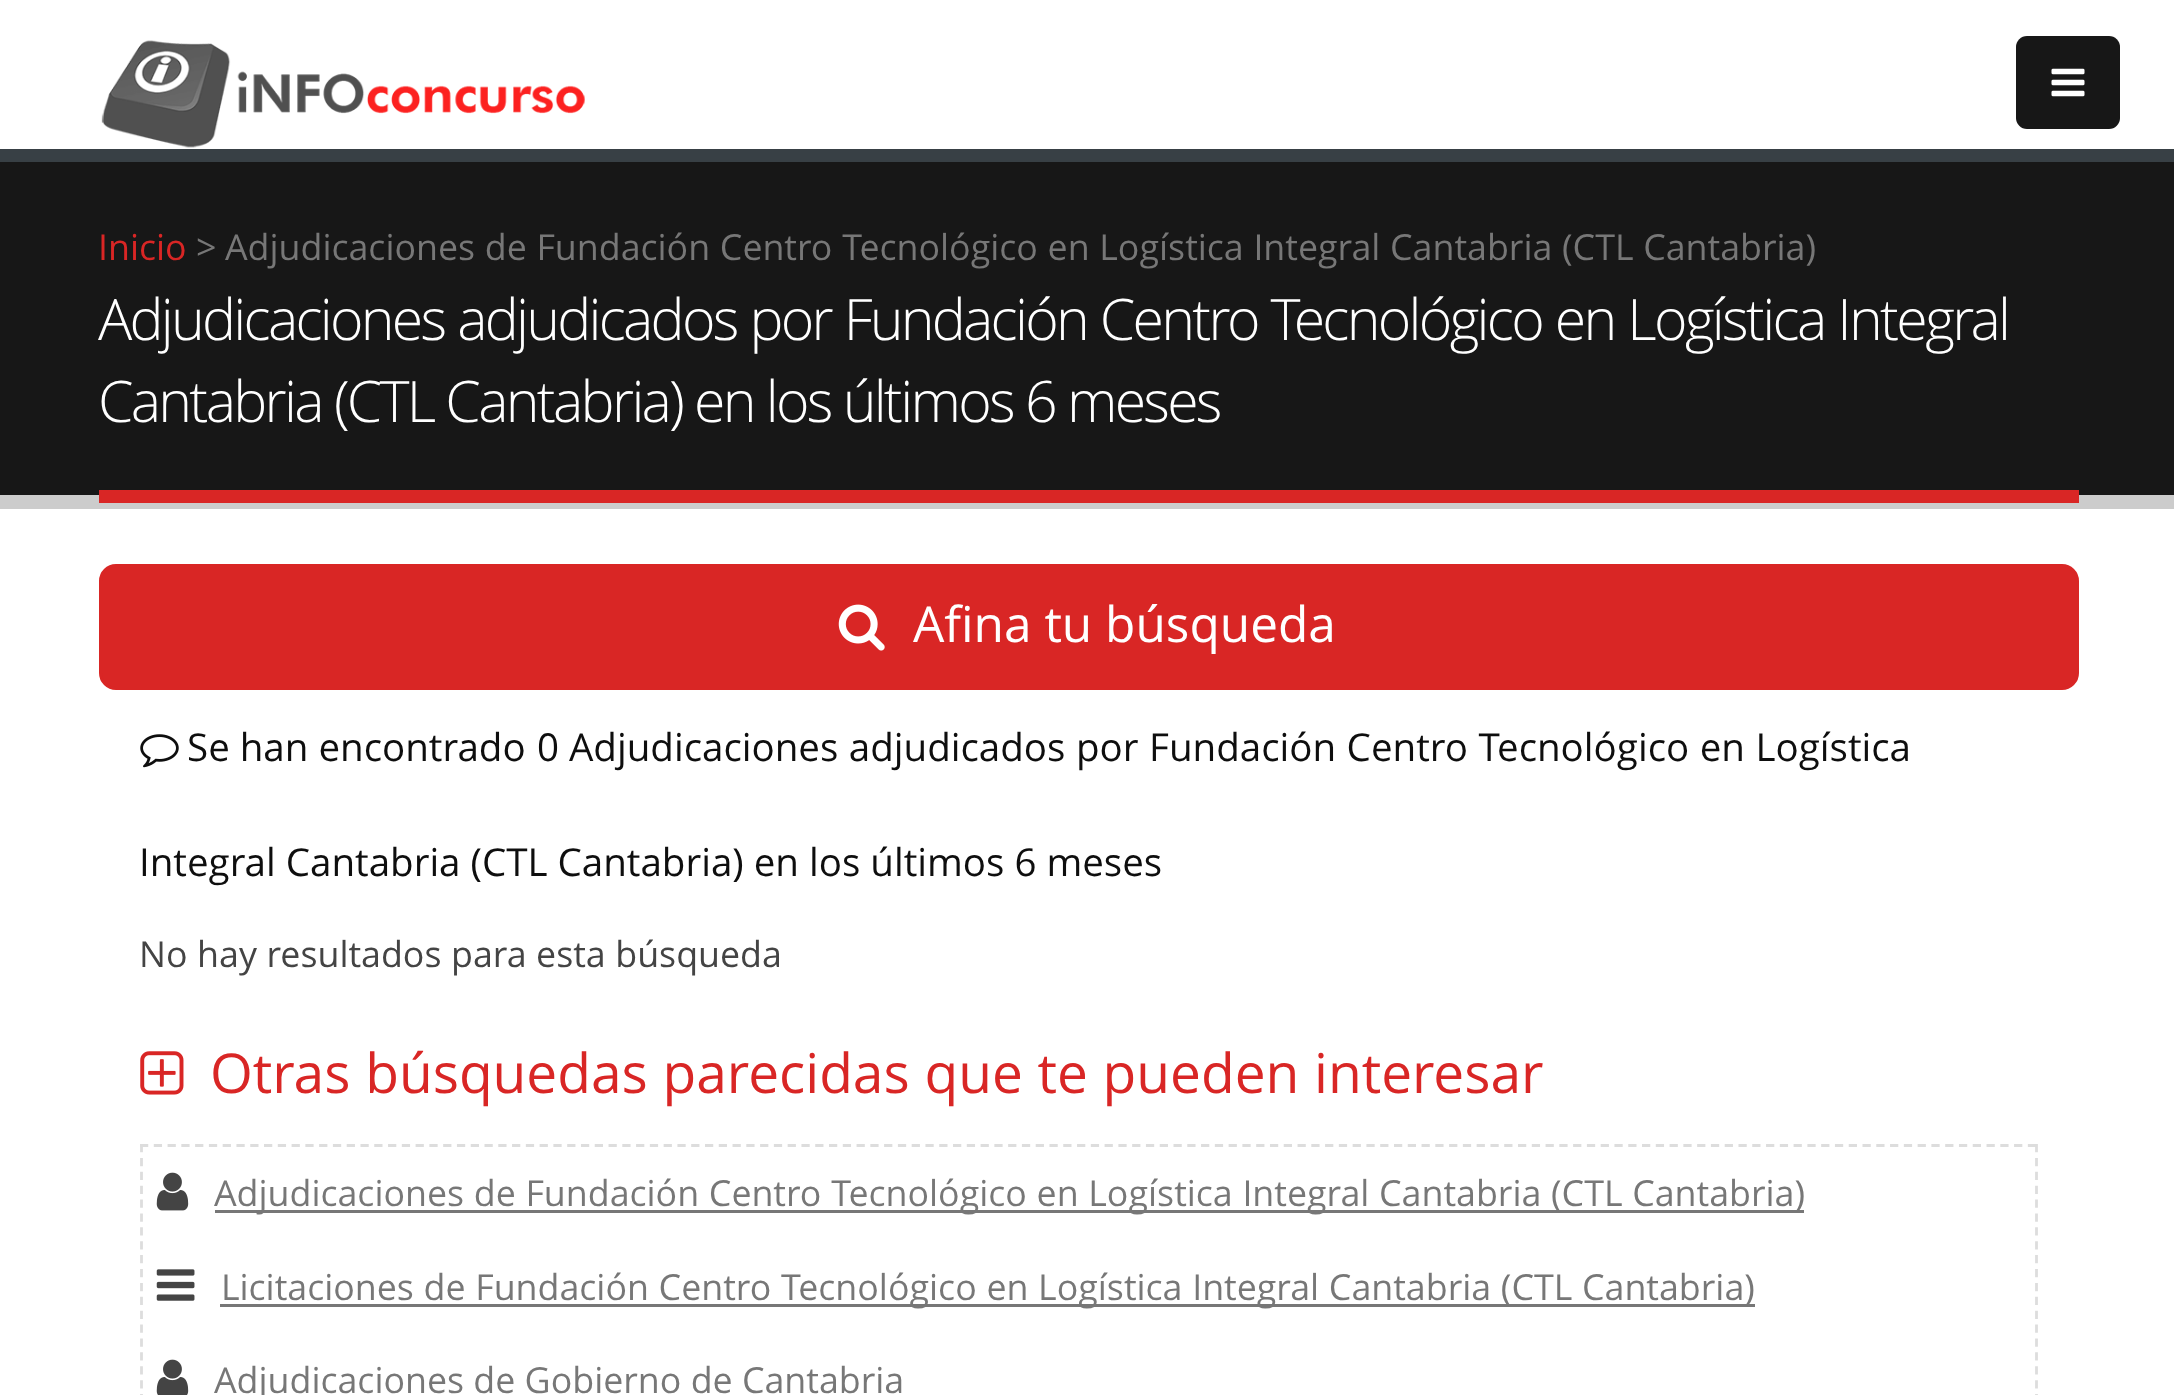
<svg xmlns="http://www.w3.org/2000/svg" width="2174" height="1395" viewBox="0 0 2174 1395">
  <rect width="100%" height="100%" fill="#fff"/>
  <image x="101" y="40" width="484" height="108" href="img/1.png"/>
  <rect x="2016" y="36" width="104" height="93" rx="11" fill="#171717"/>
  <image x="2051" y="68" width="34" height="29" href="img/2.png"/>
  <path d="M0 162h2174v333H0z" fill="#171717"/>
  <path d="M0 149h2174v13H0z" fill="#384045"/>
  <path d="M0 495h2174v14H0z" fill="#ccc"/>
  <path d="M99 490h1980v13H99z" fill="#d92625"/>
  <rect x="100.5" y="565.5" width="1977" height="123" rx="15.5" fill="#d92625" stroke="#d92625" stroke-width="3"/>
  <image x="838" y="604" width="47" height="47" href="img/3.png"/>
  <image x="140" y="734" width="39" height="34" href="img/4.png"/>
  <image x="140" y="1051" width="44" height="44" href="img/5.png"/>
  <path d="M140 1145.5H2038" fill="none" stroke="#ddd" stroke-width="2.8" stroke-dasharray="8.25 5.53"/>
  <path d="M2036.5 1144V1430" fill="none" stroke="#ddd" stroke-width="2.8" stroke-dasharray="8.25 5.64"/>
  <path d="M141.5 1144V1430" fill="none" stroke="#ddd" stroke-width="2.8" stroke-dasharray="8.25 5.64"/>
  <image x="156" y="1172" width="33" height="39" href="img/6.png"/>
  <path d="M215 1210h1589v3H215z" fill="#777"/>
  <image x="156" y="1269" width="39" height="32" href="img/7.png"/>
  <path d="M220 1304h1535v3H220z" fill="#777"/>
  <image x="156" y="1359" width="33" height="36" href="img/8.png"/>
  <text x="98" y="260" font-family="Open Sans" font-size="35.75" fill="#d92625">Inicio</text>
  <g font-family="Open Sans" font-size="35.75" fill="#777">
    <text x="196" y="260">&gt;</text>
    <text x="225" y="260" word-spacing="0.4">Adjudicaciones de Fundación Centro Tecnológico en Logística Integral Cantabria (CTL Cantabria)</text>
  </g>
  <g font-family="Open Sans" font-size="57.2" font-weight="300" letter-spacing="-2.75" fill="#fff">
    <text x="98" y="340" word-spacing="0.75">Adjudicaciones adjudicados por Fundación Centro Tecnológico en Logística Integral</text>
    <text x="98" y="422">Cantabria (CTL Cantabria) en los últimos 6 meses</text>
  </g>
  <text x="913" y="642" font-family="Open Sans" font-size="49.5" fill="#fff">Afina tu búsqueda</text>
  <g font-family="Open Sans" font-size="38.5" fill="#0e0e0e">
    <text x="187" y="761">Se han encontrado</text>
    <text x="537" y="761">0</text>
    <text x="569" y="761" word-spacing="0.5">Adjudicaciones adjudicados por Fundación Centro Tecnológico en Logística</text>
    <text x="139" y="876">Integral Cantabria (CTL Cantabria) en los últimos 6 meses</text>
  </g>
  <text x="139" y="967" word-spacing="0.25" font-family="Open Sans" font-size="35.75" fill="#444">No hay resultados para esta búsqueda</text>
  <text x="210" y="1093" word-spacing="0.5" font-family="Open Sans" font-size="55" fill="#d92625">Otras búsquedas parecidas que te pueden interesar</text>
  <g font-family="Open Sans" font-size="35.75" fill="#777">
    <text x="214" y="1206" word-spacing="0.4">Adjudicaciones de Fundación Centro Tecnológico en Logística Integral Cantabria (CTL Cantabria)</text>
    <text x="221" y="1300" word-spacing="0.4">Licitaciones de Fundación Centro Tecnológico en Logística Integral Cantabria (CTL Cantabria)</text>
    <text x="214" y="1393">Adjudicaciones de Gobierno de Cantabria</text>
  </g>
</svg>
